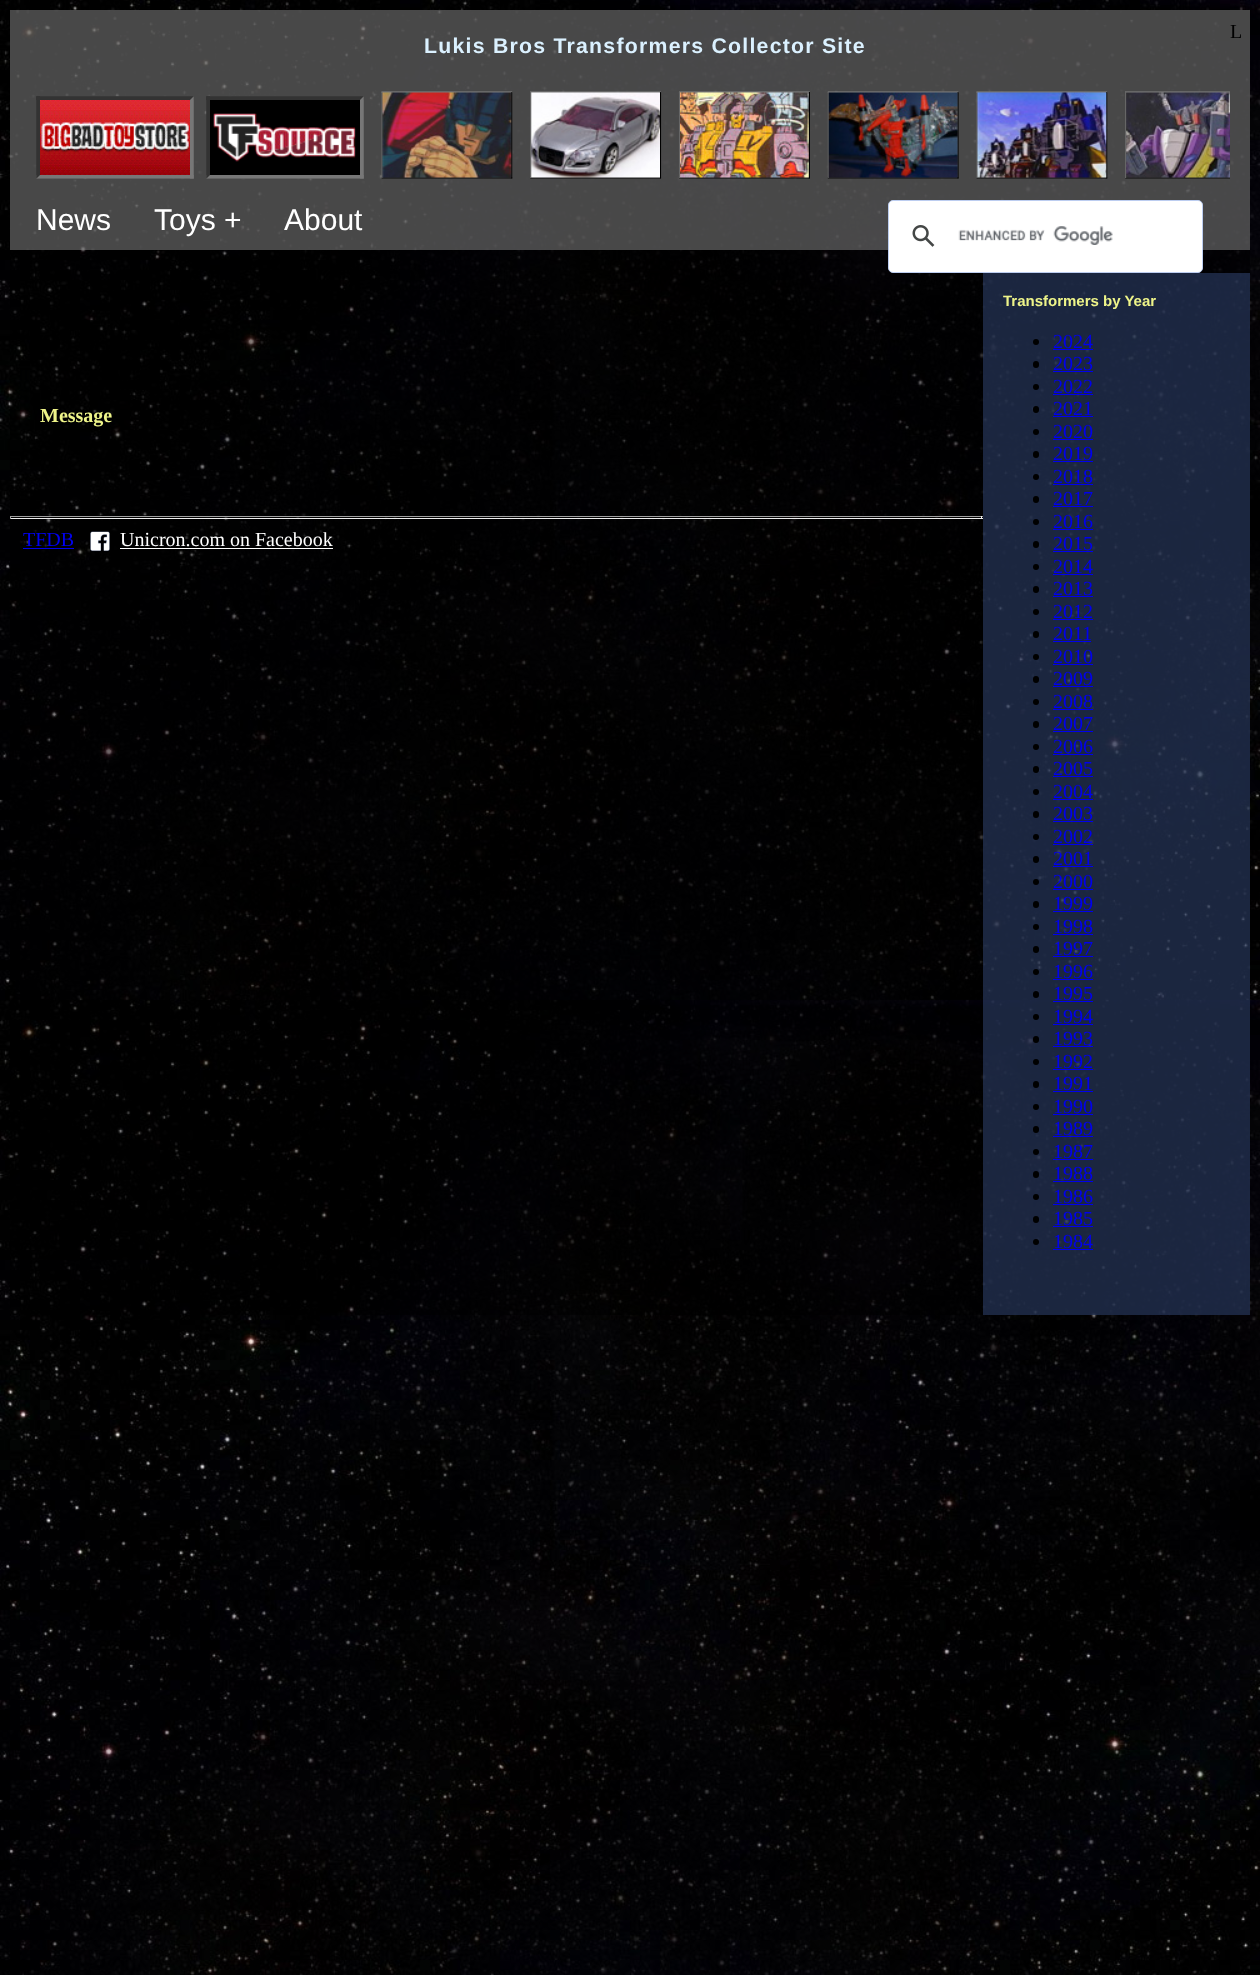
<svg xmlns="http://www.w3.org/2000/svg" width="1260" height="1975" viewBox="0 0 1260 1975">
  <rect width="100%" height="100%" fill="#fff"/>
  <image x="0" y="0" width="1260" height="1975" href="img/1.png"/>
  <path d="M10 10h1240v1305H10z" fill="#00000073"/>
  <path d="M10 10h1240v240H10z" fill="#78787899"/>
  <image x="36" y="91" width="1194" height="88" href="img/2.png"/>
  <rect x="888.5" y="200.5" width="314" height="72" rx="4.5" fill="#fff" stroke="#bccdf0"/>
  <image x="912" y="225" width="23" height="22" href="img/3.png"/>
  <image x="958" y="226" width="155" height="19" href="img/4.png"/>
  <path d="M10 516h973v1H10z" fill="#9f9f9f"/>
  <path d="M981 516h1v3H981z" fill="#eee"/>
  <path d="M10 518h973v1H10z" fill="#eee"/>
  <path d="M10 516h1v3H10z" fill="#9f9f9f"/>
  <path d="M23 548h51v1H23z" fill="#00e"/>
  <image x="90" y="531" width="20" height="21" href="img/5.png"/>
  <path d="M120 548h213v1H120z" fill="#fff"/>
  <path d="M983 273h267v1042H983z" fill="#364b7e80"/>
  <circle cx="1036" cy="342" r="3" fill="#000"/>
  <path d="M1053 349h40v1H1053z" fill="#00e"/>
  <rect x="1033" y="361" width="6" height="7" rx="3" fill="#000"/>
  <path d="M1053 371h40v1H1053z" fill="#00e"/>
  <circle cx="1036" cy="387" r="3" fill="#000"/>
  <path d="M1053 394h40v1H1053z" fill="#00e"/>
  <rect x="1033" y="406" width="6" height="7" rx="3" fill="#000"/>
  <path d="M1053 416h40v1H1053z" fill="#00e"/>
  <circle cx="1036" cy="432" r="3" fill="#000"/>
  <path d="M1053 439h40v1H1053z" fill="#00e"/>
  <rect x="1033" y="451" width="6" height="7" rx="3" fill="#000"/>
  <path d="M1053 461h40v1H1053z" fill="#00e"/>
  <circle cx="1036" cy="477" r="3" fill="#000"/>
  <path d="M1053 484h40v1H1053z" fill="#00e"/>
  <rect x="1033" y="496" width="6" height="7" rx="3" fill="#000"/>
  <path d="M1053 506h40v1H1053z" fill="#00e"/>
  <circle cx="1036" cy="522" r="3" fill="#000"/>
  <path d="M1053 529h40v1H1053z" fill="#00e"/>
  <rect x="1033" y="541" width="6" height="7" rx="3" fill="#000"/>
  <path d="M1053 551h40v1H1053z" fill="#00e"/>
  <circle cx="1036" cy="567" r="3" fill="#000"/>
  <path d="M1053 574h40v1H1053z" fill="#00e"/>
  <rect x="1033" y="586" width="6" height="7" rx="3" fill="#000"/>
  <path d="M1053 596h40v1H1053z" fill="#00e"/>
  <circle cx="1036" cy="612" r="3" fill="#000"/>
  <path d="M1053 619h40v1H1053z" fill="#00e"/>
  <rect x="1033" y="631" width="6" height="7" rx="3" fill="#000"/>
  <path d="M1053 641h38v1H1053z" fill="#00e"/>
  <circle cx="1036" cy="657" r="3" fill="#000"/>
  <path d="M1053 664h40v1H1053z" fill="#00e"/>
  <rect x="1033" y="676" width="6" height="7" rx="3" fill="#000"/>
  <path d="M1053 686h40v1H1053z" fill="#00e"/>
  <circle cx="1036" cy="702" r="3" fill="#000"/>
  <path d="M1053 709h40v1H1053z" fill="#00e"/>
  <rect x="1033" y="721" width="6" height="7" rx="3" fill="#000"/>
  <path d="M1053 731h40v1H1053z" fill="#00e"/>
  <circle cx="1036" cy="747" r="3" fill="#000"/>
  <path d="M1053 754h40v1H1053z" fill="#00e"/>
  <rect x="1033" y="766" width="6" height="7" rx="3" fill="#000"/>
  <path d="M1053 776h40v1H1053z" fill="#00e"/>
  <circle cx="1036" cy="792" r="3" fill="#000"/>
  <path d="M1053 799h40v1H1053z" fill="#00e"/>
  <rect x="1033" y="811" width="6" height="7" rx="3" fill="#000"/>
  <path d="M1053 821h40v1H1053z" fill="#00e"/>
  <circle cx="1036" cy="837" r="3" fill="#000"/>
  <path d="M1053 844h40v1H1053z" fill="#00e"/>
  <rect x="1033" y="856" width="6" height="7" rx="3" fill="#000"/>
  <path d="M1053 866h40v1H1053z" fill="#00e"/>
  <circle cx="1036" cy="882" r="3" fill="#000"/>
  <path d="M1053 889h40v1H1053z" fill="#00e"/>
  <rect x="1033" y="901" width="6" height="7" rx="3" fill="#000"/>
  <path d="M1053 911h40v1H1053z" fill="#00e"/>
  <circle cx="1036" cy="927" r="3" fill="#000"/>
  <path d="M1053 934h40v1H1053z" fill="#00e"/>
  <rect x="1033" y="946" width="6" height="7" rx="3" fill="#000"/>
  <path d="M1053 956h40v1H1053z" fill="#00e"/>
  <circle cx="1036" cy="972" r="3" fill="#000"/>
  <path d="M1053 979h40v1H1053z" fill="#00e"/>
  <rect x="1033" y="991" width="6" height="7" rx="3" fill="#000"/>
  <path d="M1053 1001h40v1H1053z" fill="#00e"/>
  <circle cx="1036" cy="1017" r="3" fill="#000"/>
  <path d="M1053 1024h40v1H1053z" fill="#00e"/>
  <rect x="1033" y="1036" width="6" height="7" rx="3" fill="#000"/>
  <path d="M1053 1046h40v1H1053z" fill="#00e"/>
  <circle cx="1036" cy="1062" r="3" fill="#000"/>
  <path d="M1053 1069h40v1H1053z" fill="#00e"/>
  <rect x="1033" y="1081" width="6" height="7" rx="3" fill="#000"/>
  <path d="M1053 1091h40v1H1053z" fill="#00e"/>
  <circle cx="1036" cy="1107" r="3" fill="#000"/>
  <path d="M1053 1114h40v1H1053z" fill="#00e"/>
  <rect x="1033" y="1126" width="6" height="7" rx="3" fill="#000"/>
  <path d="M1053 1136h40v1H1053z" fill="#00e"/>
  <circle cx="1036" cy="1152" r="3" fill="#000"/>
  <path d="M1053 1159h40v1H1053z" fill="#00e"/>
  <rect x="1033" y="1171" width="6" height="7" rx="3" fill="#000"/>
  <path d="M1053 1181h40v1H1053z" fill="#00e"/>
  <circle cx="1036" cy="1197" r="3" fill="#000"/>
  <path d="M1053 1204h40v1H1053z" fill="#00e"/>
  <rect x="1033" y="1216" width="6" height="7" rx="3" fill="#000"/>
  <path d="M1053 1226h40v1H1053z" fill="#00e"/>
  <circle cx="1036" cy="1242" r="3" fill="#000"/>
  <path d="M1053 1249h40v1H1053z" fill="#00e"/>
  <text x="1230" y="38" font-family="Liberation Serif" font-size="20" fill="#000">L</text>
  <text x="424" y="53" font-family="Liberation Sans" font-size="21.25" font-weight="bold" letter-spacing="1.25" fill="#dbf1ff">Lukis Bros Transformers Collector Site</text>
  <g font-family="Liberation Sans" font-size="30" fill="#fff">
    <text x="36" y="230">News</text>
    <text x="154" y="230">Toys +</text>
    <text x="284" y="230">About</text>
  </g>
  <text x="40" y="422" font-family="Liberation Serif" font-size="20" font-weight="bold" fill="#eef489">Message</text>
  <text x="23" y="546" font-family="Liberation Serif" font-size="20" fill="#00e">TFDB</text>
  <text x="120" y="546" font-family="Liberation Serif" font-size="20" fill="#fff">Unicron.com on Facebook</text>
  <text x="1003" y="306" font-family="Liberation Sans" font-size="15" font-weight="bold" fill="#eef489">Transformers by Year</text>
  <g font-family="Liberation Serif" font-size="20" fill="#00e">
    <text x="1053" y="348">2024</text>
    <text x="1053" y="370">2023</text>
    <text x="1053" y="393">2022</text>
    <text x="1053" y="415">2021</text>
    <text x="1053" y="438">2020</text>
    <text x="1053" y="460">2019</text>
    <text x="1053" y="483">2018</text>
    <text x="1053" y="505">2017</text>
    <text x="1053" y="528">2016</text>
    <text x="1053" y="550">2015</text>
    <text x="1053" y="573">2014</text>
    <text x="1053" y="595">2013</text>
    <text x="1053" y="618">2012</text>
    <text x="1053" y="640">2011</text>
    <text x="1053" y="663">2010</text>
    <text x="1053" y="685">2009</text>
    <text x="1053" y="708">2008</text>
    <text x="1053" y="730">2007</text>
    <text x="1053" y="753">2006</text>
    <text x="1053" y="775">2005</text>
    <text x="1053" y="798">2004</text>
    <text x="1053" y="820">2003</text>
    <text x="1053" y="843">2002</text>
    <text x="1053" y="865">2001</text>
    <text x="1053" y="888">2000</text>
    <text x="1053" y="910">1999</text>
    <text x="1053" y="933">1998</text>
    <text x="1053" y="955">1997</text>
    <text x="1053" y="978">1996</text>
    <text x="1053" y="1000">1995</text>
    <text x="1053" y="1023">1994</text>
    <text x="1053" y="1045">1993</text>
    <text x="1053" y="1068">1992</text>
    <text x="1053" y="1090">1991</text>
    <text x="1053" y="1113">1990</text>
    <text x="1053" y="1135">1989</text>
    <text x="1053" y="1158">1987</text>
    <text x="1053" y="1180">1988</text>
    <text x="1053" y="1203">1986</text>
    <text x="1053" y="1225">1985</text>
    <text x="1053" y="1248">1984</text>
  </g>
</svg>
